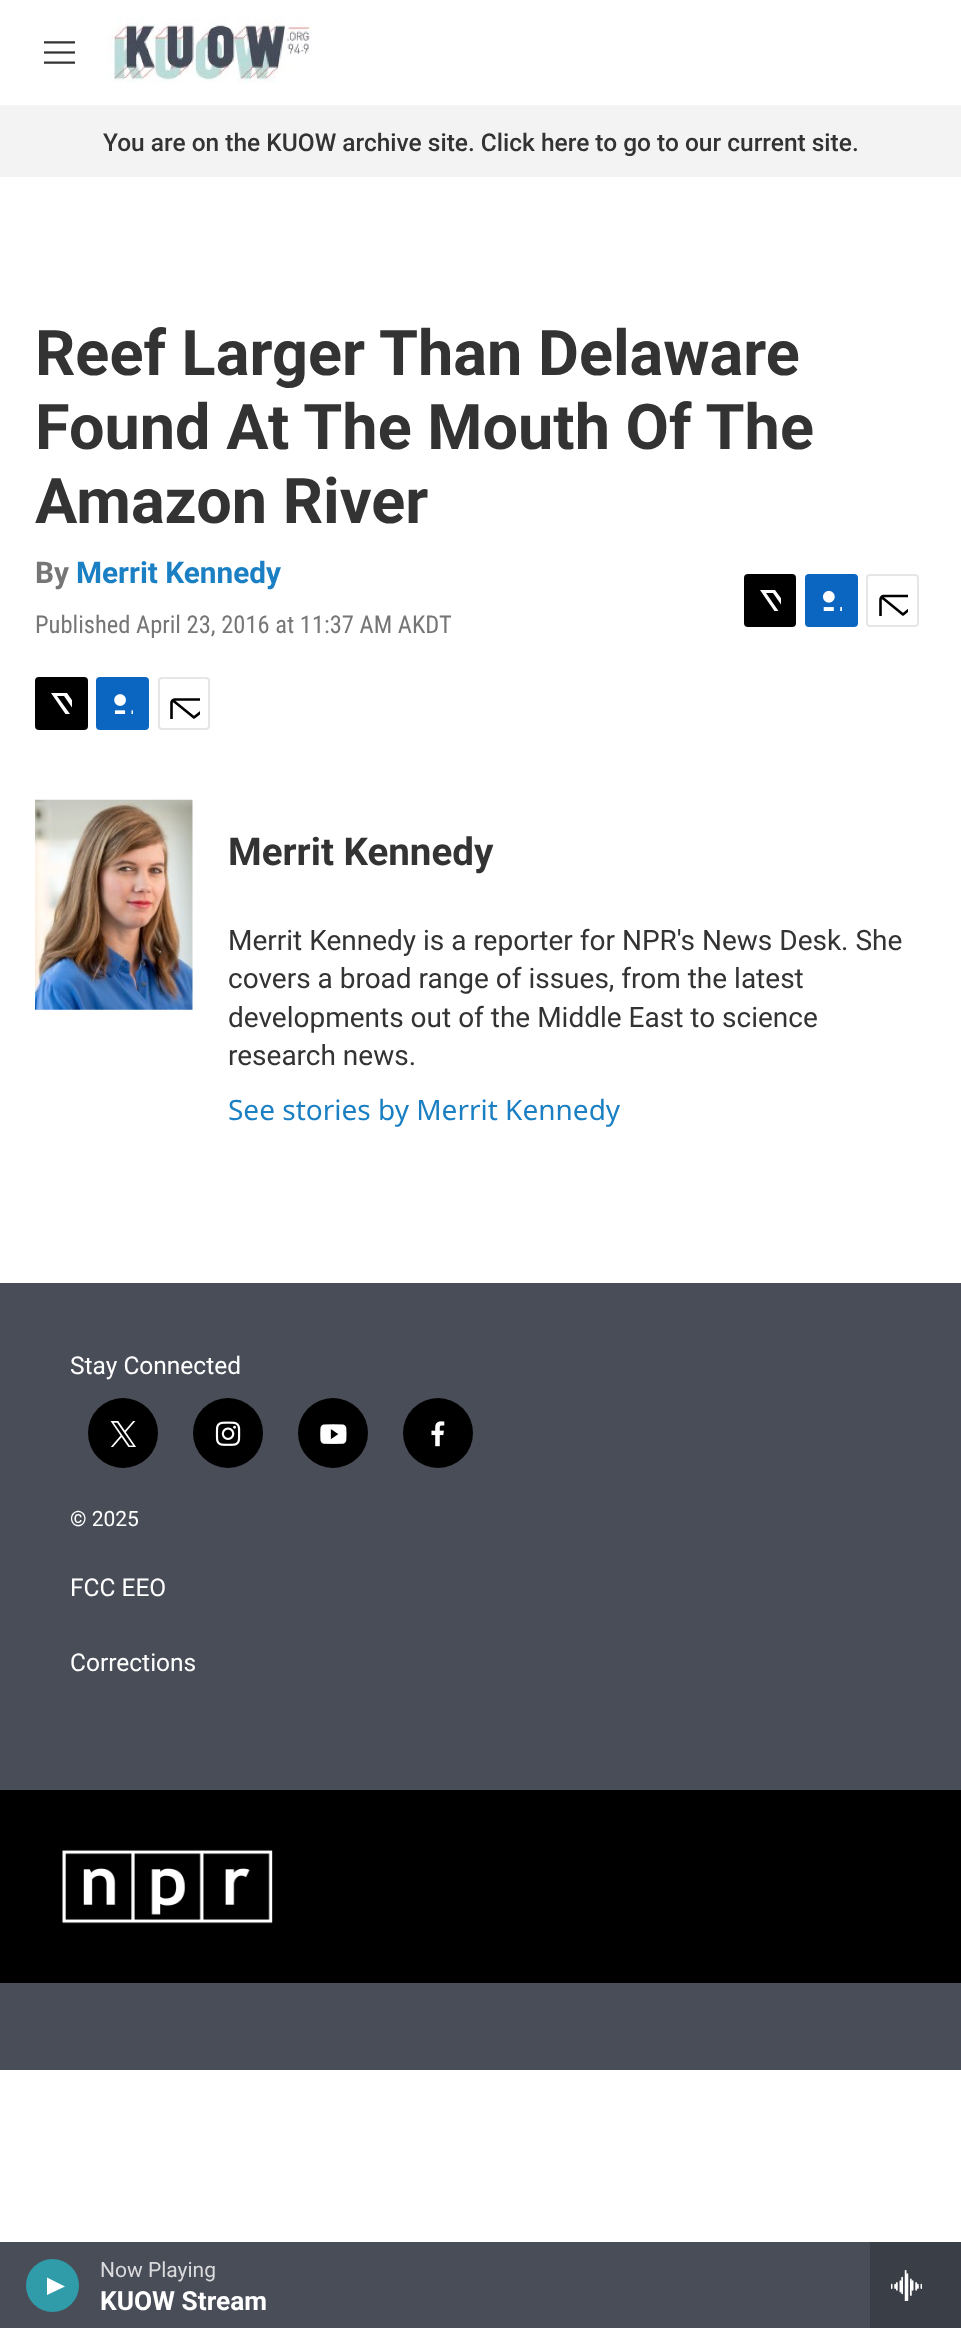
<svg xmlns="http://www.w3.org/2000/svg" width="961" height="2328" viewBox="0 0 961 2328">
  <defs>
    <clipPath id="clip1"><path d="M760 590h21v21H760z"/></clipPath>
    <clipPath id="clip2"><path d="M877 585h31v31H877z"/></clipPath>
    <clipPath id="clip3"><path d="M51 693h21v21H51z"/></clipPath>
    <clipPath id="clip4"><path d="M168 688h32v31H168z"/></clipPath>
  </defs>
  <rect width="100%" height="100%" fill="#fff"/>
  <path d="M0 107h961v70H0z" fill="#f3f3f3"/>
  <rect x="744" y="574" width="52" height="53" rx="4" fill="#000"/>
  <g clip-path="url(#clip1)">
    <path d="M791 612L796 619.5C796 621.5 796.5 623.5 795.5 625L773 593H766L789.5 627H785.5L782 622L778 627H773L780 619L760 590H775L789 609L796 600.5V606Z" fill="#fff"/>
  </g>
  <rect x="805" y="574" width="53" height="53" rx="4" fill="#0a66c1"/>
  <image x="823" y="590" width="19" height="21" href="img/1.png"/>
  <rect x="867" y="575" width="51" height="51" rx="3" fill="none" stroke="#e6e6e6" stroke-width="2"/>
  <g clip-path="url(#clip2)">
    <path d="M925.5 623C925.5 624.5 924 626 922.5 626H883.5C882 626 880.5 624.5 880.5 623V599.5C880.5 597.5 882 596 883.5 596H922.5C924 596 925.5 597.5 925.5 599.5ZM924.5 597L903 614.5L881.5 597" fill="none" stroke="#000" stroke-width="2.6" stroke-linecap="round" stroke-linejoin="round"/>
  </g>
  <rect x="35" y="677" width="53" height="53" rx="4" fill="#000"/>
  <g clip-path="url(#clip3)">
    <path d="M82 715L88 723.5C88 725.5 88.5 727.5 87 729L64 696H57L81.5 730H76.5L73 725L69 730H64L71 722L51 693H67L80 712L88 702.5V708Z" fill="#fff"/>
  </g>
  <rect x="96" y="677" width="53" height="53" rx="4" fill="#0a66c1"/>
  <image x="114" y="694" width="19" height="20" href="img/2.png"/>
  <rect x="159" y="678" width="50" height="51" rx="3" fill="none" stroke="#e6e6e6" stroke-width="2"/>
  <g clip-path="url(#clip4)">
    <path d="M217 726C217 728 215.5 729.5 213.5 729.5H175C173 729.5 171.5 728 171.5 726V702.5C171.5 701 173 699.5 175 699.5H213.5C215.5 699.5 217 701 217 702.5ZM215.5 700.5L194 717.5L173 700.5" fill="none" stroke="#000" stroke-width="2.6" stroke-linecap="round" stroke-linejoin="round"/>
  </g>
  <image x="35" y="799" width="158" height="211" href="img/3.png"/>
  <path d="M0 1283h961v787H0z" fill="#494d58"/>
  <circle cx="123" cy="1433" r="35" fill="#000"/>
  <image x="110" y="1421" width="26" height="26" href="img/4.png"/>
  <circle cx="228" cy="1433" r="35" fill="#000"/>
  <image x="215" y="1421" width="26" height="25" href="img/5.png"/>
  <circle cx="333" cy="1433" r="35" fill="#000"/>
  <image x="320" y="1424" width="27" height="20" href="img/6.png"/>
  <circle cx="438" cy="1433" r="35" fill="#000"/>
  <image x="431" y="1421" width="14" height="26" href="img/7.png"/>
  <path d="M0 1790h961v193H0z" fill="#000"/>
  <image x="62" y="1849" width="211" height="75" href="img/8.png"/>
  <path d="M0 105h961v2H0z" fill="#f5f5f5"/>
  <image x="44" y="41" width="31" height="23" href="img/9.png"/>
  <image x="107" y="17" width="206" height="67" href="img/10.png"/>
  <path d="M0 2242h870v86H0z" fill="#494d58"/>
  <circle cx="52.5" cy="2285.5" r="26.5" fill="#309ca9"/>
  <path d="M47 2277.5L65 2286.5L47 2295Z" fill="#fff"/>
  <path d="M870 2242h91v86H870z" fill="#3a3e46"/>
  <image x="891" y="2270" width="31" height="31" href="img/11.png"/>
  <text x="103" y="151" font-family="Roboto" font-size="24.5" font-weight="500" fill="#333">You are on the KUOW archive site. Click here to go to our current site.</text>
  <g font-family="Roboto" font-size="63" font-weight="bold" fill="#333">
    <text x="35" y="375">Reef Larger Than Delaware</text>
    <text x="35" y="449">Found At The Mouth Of The</text>
    <text x="35" y="523">Amazon River</text>
  </g>
  <text x="35" y="583" font-family="Roboto" font-size="29.75" font-weight="bold" fill="#767676">By</text>
  <text x="76" y="583" font-family="Roboto" font-size="29.75" font-weight="bold" fill="#1a7fc3">Merrit Kennedy</text>
  <text x="35" y="633" font-family="Roboto Condensed" font-size="24.5" fill="#767676">Published April 23, 2016 at 11:37 AM AKDT</text>
  <text x="228" y="865" font-family="Roboto" font-size="38.5" font-weight="bold" fill="#333">Merrit Kennedy</text>
  <g font-family="Roboto" font-size="28" fill="#333">
    <text x="228" y="950">Merrit Kennedy is a reporter for NPR's News Desk. She</text>
    <text x="228" y="988">covers a broad range of issues, from the latest</text>
    <text x="228" y="1027">developments out of the Middle East to science</text>
    <text x="228" y="1065">research news.</text>
  </g>
  <text x="228" y="1120" font-family="Noto Sans" font-size="28" fill="#1a7fc3">See stories by Merrit Kennedy</text>
  <text x="70" y="1374" font-family="Roboto" font-size="24.5" fill="#fff">Stay Connected</text>
  <text x="70" y="1526" font-family="Roboto" font-size="21" fill="#fff">© 2025</text>
  <g font-family="Roboto" font-size="24.5" fill="#fff">
    <text x="70" y="1596">FCC EEO</text>
    <text x="70" y="1671">Corrections</text>
  </g>
  <text x="100" y="2277" font-family="Roboto" font-size="21" fill="#dbdbde">Now Playing</text>
  <text x="100" y="2310" font-family="'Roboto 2'" font-size="26.25" font-weight="bold" fill="#fff">KUOW Stream</text>
</svg>
